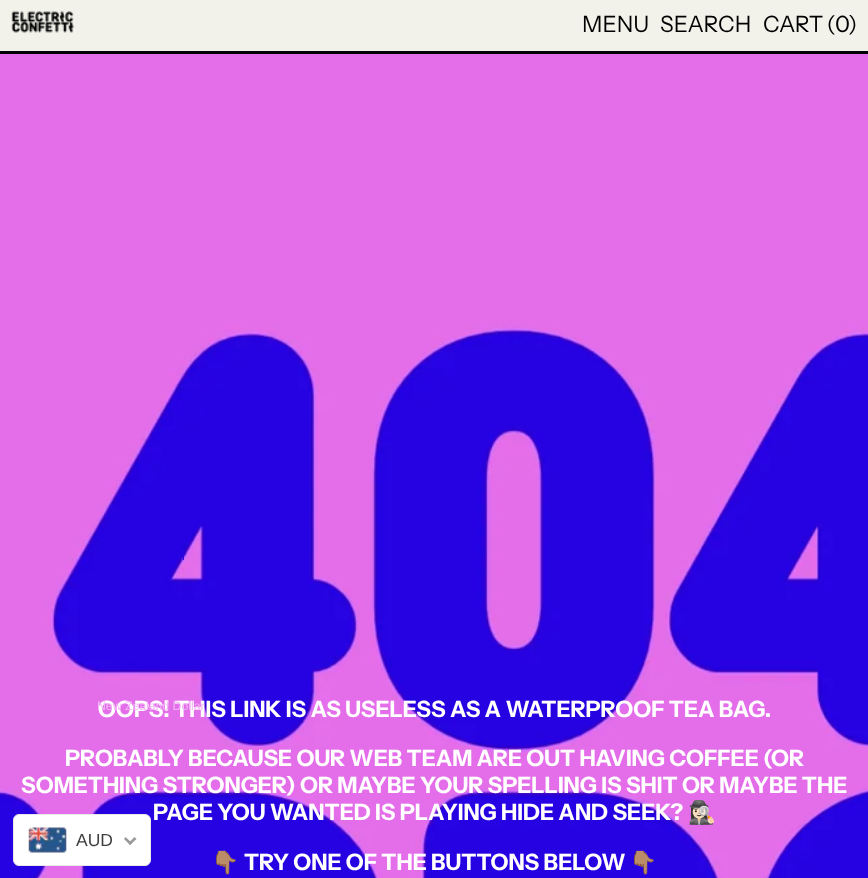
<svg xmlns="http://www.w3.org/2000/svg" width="868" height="878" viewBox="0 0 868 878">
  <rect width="100%" height="100%" fill="#f2f2eb"/>
  <path d="M0 51h868v3H0z" fill="#000"/>
  <image x="11" y="11" width="63" height="22" href="img/1.png"/>
  <image x="0" y="54" width="868" height="824" href="img/3.png"/>
  <rect x="13.5" y="814.5" width="137" height="51" rx="5.5" fill="#fff" stroke="#e8e8e8"/>
  <image x="28" y="827" width="39" height="26" href="img/2.png"/>
  <path d="M134.5 837L136.5 839L130 845L128.5 843Z" fill="#999"/>
  <path d="M125.5 837L132 843L130 845L124 839Z" fill="#999"/>
  <g font-family="Instrument Sans" font-size="22.5" fill="#000">
    <text x="582" y="32">MENU</text>
    <text x="660" y="32">SEARCH</text>
    <text x="763" y="32" word-spacing="-1">CART (</text>
    <text x="835" y="32">0</text>
    <text x="848" y="32">)</text>
  </g>
  <text x="182" y="560" font-family="Liberation Sans" font-size="12.25" fill="#2a04e2">r</text>
  <text x="76" y="846" font-family="Liberation Sans" font-size="17.5" fill="#403f3f">AUD</text>
  <text x="98" y="717" font-family="Instrument Sans" font-size="22.5" font-weight="bold" fill="#fff">OOPS! THIS LINK IS AS USELESS AS A WATERPROOF TEA BAG.</text>
  <text x="97" y="710" font-family="Liberation Sans" font-size="12.25" fill="#f1b5f4">New Zealand Dollar</text>
  <g font-family="Instrument Sans" font-size="22.5" font-weight="bold" fill="#fff">
    <text x="65" y="766">PROBABLY BECAUSE OUR WEB TEAM ARE OUT HAVING COFFEE (OR</text>
    <text x="21" y="793">SOMETHING STRONGER) OR MAYBE YOUR SPELLING IS SHIT OR MAYBE THE</text>
    <text x="153" y="820">PAGE YOU WANTED IS PLAYING HIDE AND SEEK?</text>
  </g>
  <g font-family="Noto Color Emoji" font-size="22.5" font-weight="bold" fill="#fff">
    <text x="688" y="820">🕵🏻‍♀️</text>
    <text x="211" y="870">👇🏽</text>
  </g>
  <text x="244" y="870" font-family="Instrument Sans" font-size="22.5" font-weight="bold" fill="#fff">TRY ONE OF THE BUTTONS BELOW</text>
  <text x="629" y="870" font-family="Noto Color Emoji" font-size="22.5" font-weight="bold" fill="#fff">👇🏽</text>
</svg>
